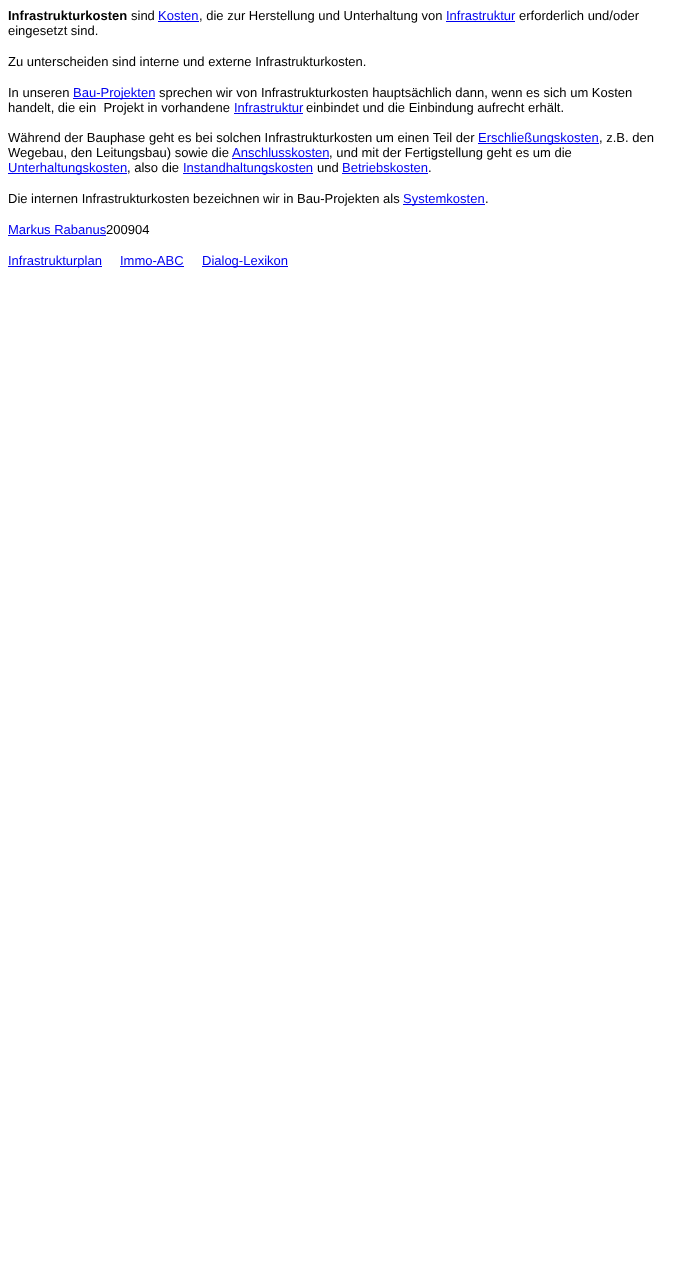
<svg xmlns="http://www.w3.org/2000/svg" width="679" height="1286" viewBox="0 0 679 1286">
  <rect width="100%" height="100%" fill="#fff"/>
  <path d="M158 21h41v1H158z" fill="#00e"/>
  <path d="M446 21h69v1H446z" fill="#00e"/>
  <path d="M73 98h82v1H73z" fill="#00e"/>
  <path d="M234 113h69v1H234z" fill="#00e"/>
  <path d="M478 143h121v1H478z" fill="#00e"/>
  <path d="M232 158h97v1H232z" fill="#00e"/>
  <path d="M8 173h119v1H8z" fill="#00e"/>
  <path d="M183 173h130v1H183z" fill="#00e"/>
  <path d="M342 173h86v1H342z" fill="#00e"/>
  <path d="M403 204h82v1H403z" fill="#00e"/>
  <path d="M8 235h98v1H8z" fill="#00e"/>
  <path d="M8 266h94v1H8z" fill="#00e"/>
  <path d="M120 266h64v1H120z" fill="#00e"/>
  <path d="M202 266h86v1H202z" fill="#00e"/>
  <text x="8" y="20" font-family="Liberation Sans" font-size="13" font-weight="bold" fill="#000">Infrastrukturkosten</text>
  <text x="131" y="20" font-family="Liberation Sans" font-size="13" fill="#000">sind</text>
  <text x="158" y="20" font-family="Liberation Sans" font-size="13" fill="#00e">Kosten</text>
  <text x="199" y="20" font-family="Liberation Sans" font-size="13" fill="#000">, die zur Herstellung und Unterhaltung von</text>
  <text x="446" y="20" font-family="Liberation Sans" font-size="13" fill="#00e">Infrastruktur</text>
  <g font-family="Liberation Sans" font-size="13" fill="#000">
    <text x="519" y="20">erforderlich und/oder</text>
    <text x="8" y="35">eingesetzt sind.</text>
    <text x="8" y="66">Zu unterscheiden sind interne und externe Infrastrukturkosten.</text>
    <text x="8" y="97">In unseren</text>
  </g>
  <text x="73" y="97" font-family="Liberation Sans" font-size="13" fill="#00e">Bau-Projekten</text>
  <g font-family="Liberation Sans" font-size="13" fill="#000">
    <text x="159" y="97">sprechen wir von Infrastrukturkosten hauptsächlich dann, wenn es sich um Kosten</text>
    <text x="8" y="112" xml:space="preserve">handelt, die ein  Projekt in vorhandene</text>
  </g>
  <text x="234" y="112" font-family="Liberation Sans" font-size="13" fill="#00e">Infrastruktur</text>
  <g font-family="Liberation Sans" font-size="13" fill="#000">
    <text x="306" y="112">einbindet und die Einbindung aufrecht erhält.</text>
    <text x="8" y="142">Während der Bauphase geht es bei solchen Infrastrukturkosten um einen Teil der</text>
  </g>
  <text x="478" y="142" font-family="Liberation Sans" font-size="13" fill="#00e">Erschließungskosten</text>
  <g font-family="Liberation Sans" font-size="13" fill="#000">
    <text x="599" y="142">, z.B. den</text>
    <text x="8" y="157">Wegebau, den Leitungsbau) sowie die</text>
  </g>
  <text x="232" y="157" font-family="Liberation Sans" font-size="13" fill="#00e">Anschlusskosten</text>
  <text x="329" y="157" font-family="Liberation Sans" font-size="13" fill="#000">, und mit der Fertigstellung geht es um die</text>
  <text x="8" y="172" font-family="Liberation Sans" font-size="13" fill="#00e">Unterhaltungskosten</text>
  <text x="127" y="172" font-family="Liberation Sans" font-size="13" fill="#000">, also die</text>
  <text x="183" y="172" font-family="Liberation Sans" font-size="13" fill="#00e">Instandhaltungskosten</text>
  <text x="317" y="172" font-family="Liberation Sans" font-size="13" fill="#000">und</text>
  <text x="342" y="172" font-family="Liberation Sans" font-size="13" fill="#00e">Betriebskosten</text>
  <g font-family="Liberation Sans" font-size="13" fill="#000">
    <text x="428" y="172">.</text>
    <text x="8" y="203">Die internen Infrastrukturkosten bezeichnen wir in Bau-Projekten als</text>
  </g>
  <text x="403" y="203" font-family="Liberation Sans" font-size="13" fill="#00e">Systemkosten</text>
  <text x="485" y="203" font-family="Liberation Sans" font-size="13" fill="#000">.</text>
  <text x="8" y="234" font-family="Liberation Sans" font-size="13" fill="#00e">Markus Rabanus</text>
  <text x="106" y="234" font-family="Liberation Sans" font-size="13" fill="#000">200904</text>
  <g font-family="Liberation Sans" font-size="13" fill="#00e">
    <text x="8" y="265">Infrastrukturplan</text>
    <text x="120" y="265">Immo-ABC</text>
    <text x="202" y="265">Dialog-Lexikon</text>
  </g>
</svg>
